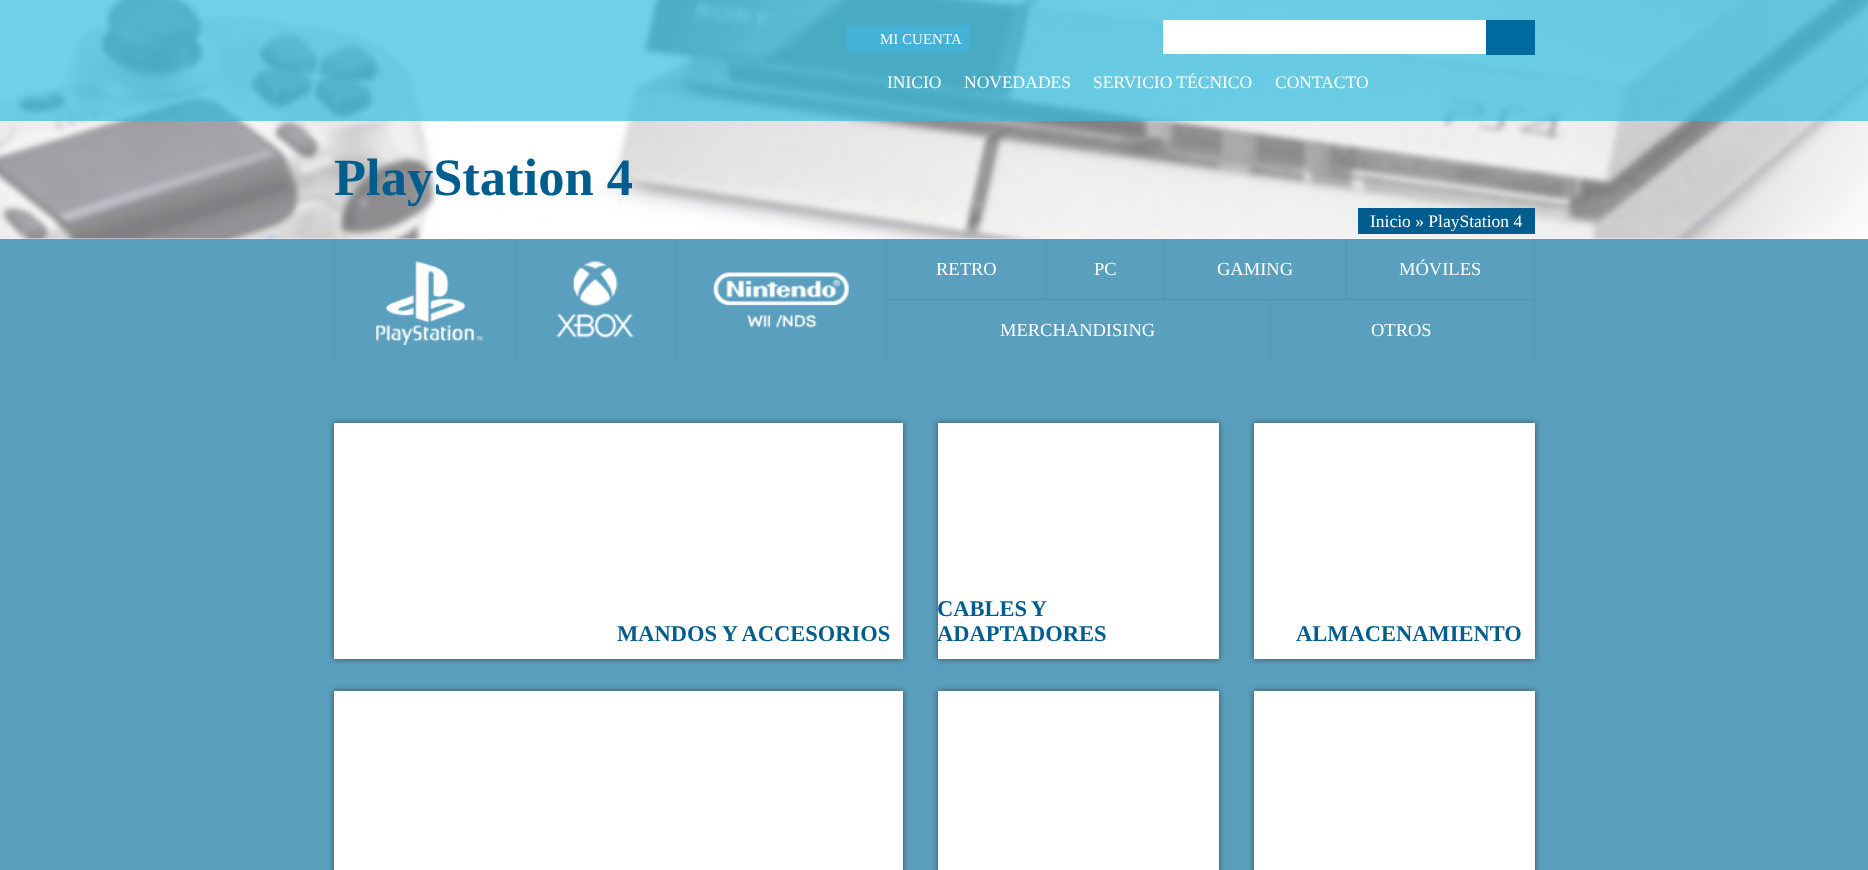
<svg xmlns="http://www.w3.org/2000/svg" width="1868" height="870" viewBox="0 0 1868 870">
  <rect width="100%" height="100%" fill="#5a9fbe"/>
  <path d="M0 238h1868v1H0z" fill="#fff"/>
  <image x="0" y="0" width="1868" height="239" href="img/1.png"/>
  <path d="M0 0h1868v121H0z" fill="#31bce0b3"/>
  <path d="M846 25h124v26H846z" fill="#45b1d7"/>
  <path d="M1163 20h323v34H1163z" fill="#fff"/>
  <path d="M1486 20h49v35H1486z" fill="#006a9f"/>
  <path d="M1358 208h177v26H1358z" fill="#005d8d"/>
  <path d="M334 239h1v122H334z" fill="#5a91af"/>
  <path d="M515 239h1v122H515z" fill="#5a91af"/>
  <image x="356" y="256" width="138" height="90" href="img/2.png"/>
  <path d="M675 239h1v122H675z" fill="#5a91af"/>
  <image x="556" y="261" width="78" height="77" href="img/3.png"/>
  <path d="M886 239h1v122H886z" fill="#5a91af"/>
  <image x="713" y="272" width="136" height="56" href="img/4.png"/>
  <path d="M1046 239h1v61H1046z" fill="#5a91af"/>
  <path d="M888 299h160v1H888z" fill="#5a91af"/>
  <path d="M1164 239h1v61H1164z" fill="#5a91af"/>
  <path d="M1048 299h117v1H1048z" fill="#5a91af"/>
  <path d="M1346 239h1v61H1346z" fill="#5a91af"/>
  <path d="M1165 299h183v1H1165z" fill="#5a91af"/>
  <path d="M1534 239h1v122H1534z" fill="#5a91af"/>
  <path d="M1348 299h187v1H1348z" fill="#5a91af"/>
  <path d="M1270 300h1v61H1270z" fill="#5a91af"/>
  <path d="M334 423h569v236H334z" fill="#323232bf" filter="blur(3px)"/>
  <path d="M334 423h569v236H334z" fill="#fff"/>
  <path d="M938 423h281v236H938z" fill="#323232bf" filter="blur(3px)"/>
  <path d="M938 423h281v236H938z" fill="#fff"/>
  <path d="M1254 423h281v236H1254z" fill="#323232bf" filter="blur(3px)"/>
  <path d="M1254 423h281v236H1254z" fill="#fff"/>
  <path d="M334 691h569v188H334z" fill="#323232bf" filter="blur(3px)"/>
  <path d="M334 691h569v179H334z" fill="#fff"/>
  <path d="M938 691h281v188H938z" fill="#323232bf" filter="blur(3px)"/>
  <path d="M938 691h281v179H938z" fill="#fff"/>
  <path d="M1254 691h281v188H1254z" fill="#323232bf" filter="blur(3px)"/>
  <path d="M1254 691h281v179H1254z" fill="#fff"/>
  <text x="880" y="44" font-family="Liberation Serif" font-size="15" fill="#fff">MI CUENTA</text>
  <g font-family="Liberation Serif" font-size="17.5" fill="#fff">
    <text x="887" y="88">INICIO</text>
    <text x="964" y="88">NOVEDADES</text>
    <text x="1093" y="88">SERVICIO TÉCNICO</text>
    <text x="1275" y="88">CONTACTO</text>
  </g>
  <text x="334" y="195" font-family="Liberation Serif" font-size="52.5" font-weight="bold" fill="#005d8d">PlayStation 4</text>
  <text x="1370" y="227" font-family="Liberation Serif" font-size="17.5" fill="#fff">Inicio » PlayStation 4</text>
  <g font-family="Liberation Serif" font-size="18.5" fill="#fff">
    <text x="936" y="275">RETRO</text>
    <text x="1094" y="275">PC</text>
    <text x="1217" y="275">GAMING</text>
    <text x="1399" y="275">MÓVILES</text>
    <text x="1000" y="336">MERCHANDISING</text>
    <text x="1371" y="336">OTROS</text>
  </g>
  <g font-family="Liberation Serif" font-size="22.5" font-weight="bold" fill="#005d8d">
    <text x="617" y="641">MANDOS Y ACCESORIOS</text>
    <text x="937" y="616" word-spacing="-1">CABLES Y</text>
    <text x="937" y="641">ADAPTADORES</text>
    <text x="1296" y="641">ALMACENAMIENTO</text>
  </g>
</svg>
